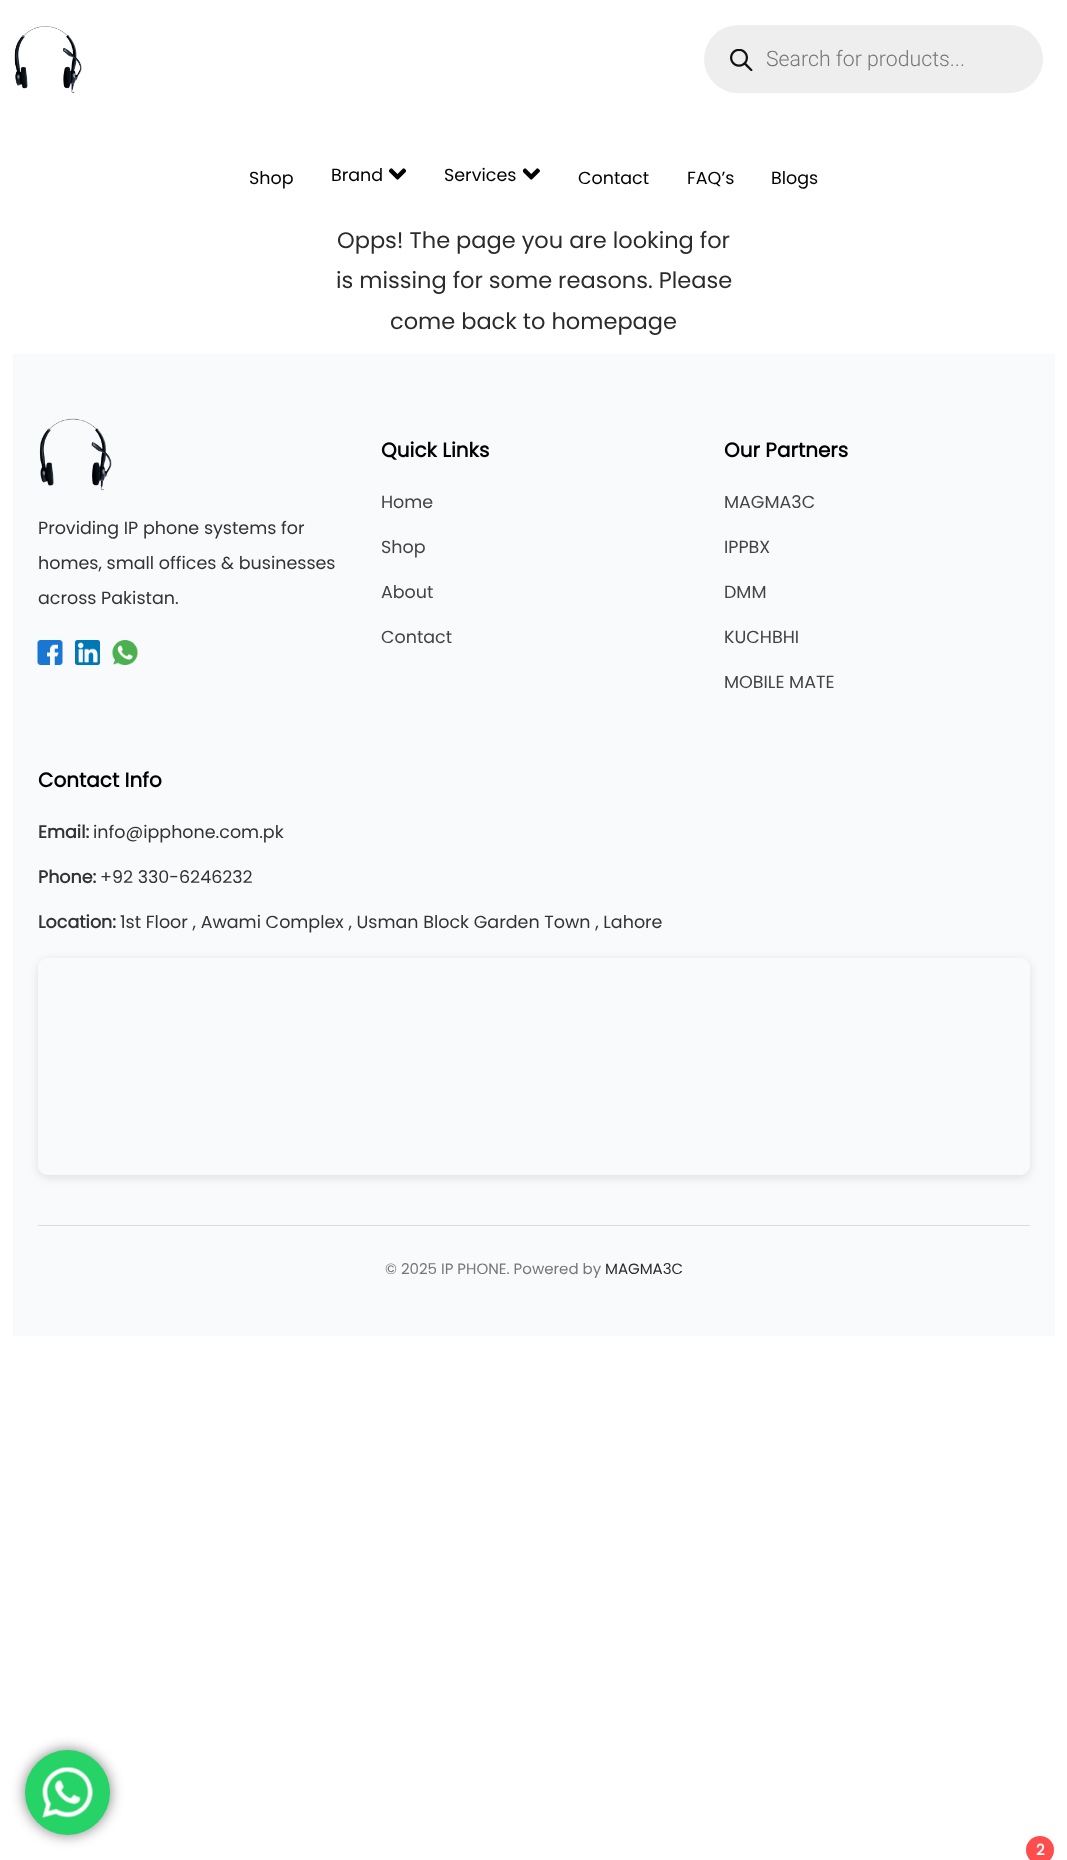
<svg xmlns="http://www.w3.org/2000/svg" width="1067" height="1860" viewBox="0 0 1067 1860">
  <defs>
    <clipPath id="clip1"><path d="M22 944H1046V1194H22ZM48 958H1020C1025.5 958 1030 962.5 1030 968V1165C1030 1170.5 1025.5 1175 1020 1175H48C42.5 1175 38 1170.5 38 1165V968C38 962.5 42.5 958 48 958Z" clip-rule="evenodd"/></clipPath>
  </defs>
  <rect width="100%" height="100%" fill="#fff"/>
  <image x="14" y="26" width="68" height="67" href="img/1.png"/>
  <rect x="704" y="25" width="339" height="68" rx="34" fill="#eee"/>
  <image x="730" y="49" width="23" height="22" href="img/2.png"/>
  <image x="389" y="168" width="17" height="12" href="img/3.png"/>
  <image x="523" y="168" width="17" height="12" href="img/4.png"/>
  <path d="M13 354h1042v982H13z" fill="#f9fafc"/>
  <image x="39" y="418" width="73" height="73" href="img/5.png"/>
  <image x="37" y="640" width="26" height="25" href="img/6.png"/>
  <image x="75" y="640" width="25" height="25" href="img/7.png"/>
  <image x="112" y="640" width="26" height="25" href="img/8.png"/>
  <g clip-path="url(#clip1)">
    <rect x="38" y="960" width="992" height="218" rx="10" fill="#0000001a" filter="blur(5px)"/>
  </g>
  <path d="M38 1225h992v1H38z" fill="#ddd"/>
  <rect x="25" y="1750" width="85" height="85" rx="42.5" fill="#00000080" filter="blur(7px)"/>
  <circle cx="67.5" cy="1792.5" r="42.5" fill="#25d366"/>
  <image x="42" y="1767" width="51" height="51" href="img/9.png"/>
  <circle cx="1040" cy="1850" r="14" fill="#ff4c4c"/>
  <text x="766" y="66" font-family="Roboto" font-size="21.25" font-weight="300" fill="#777">Search for products...</text>
  <g font-family="Poppins" font-size="17.5" fill="#000">
    <text x="249" y="184">Shop</text>
    <text x="331" y="181">Brand</text>
    <text x="444" y="181">Services</text>
    <text x="578" y="184">Contact</text>
    <text x="687" y="184">FAQ’s</text>
    <text x="771" y="184">Blogs</text>
  </g>
  <g font-family="Poppins" font-size="22.5" fill="#2b2b2b">
    <text x="337" y="248">Opps! The page you are looking for</text>
    <text x="336" y="288">is missing for some reasons. Please</text>
    <text x="390" y="329">come back to homepage</text>
  </g>
  <g font-family="Poppins" font-size="17.5" fill="#333">
    <text x="38" y="534">Providing IP phone systems for</text>
    <text x="38" y="569">homes, small offices &amp; businesses</text>
    <text x="38" y="604">across Pakistan.</text>
  </g>
  <text x="381" y="457" font-family="Poppins" font-size="20" font-weight="bold" fill="#000">Quick Links</text>
  <g font-family="Poppins" font-size="17.5" fill="#444">
    <text x="381" y="508">Home</text>
    <text x="381" y="553">Shop</text>
    <text x="381" y="598">About</text>
    <text x="381" y="643">Contact</text>
  </g>
  <text x="724" y="457" font-family="Poppins" font-size="20" font-weight="bold" fill="#000">Our Partners</text>
  <g font-family="Poppins" font-size="17.5" fill="#444">
    <text x="724" y="508">MAGMA3C</text>
    <text x="724" y="553">IPPBX</text>
    <text x="724" y="598">DMM</text>
    <text x="724" y="643">KUCHBHI</text>
    <text x="724" y="688">MOBILE MATE</text>
  </g>
  <text x="38" y="787" font-family="Poppins" font-size="20" font-weight="bold" fill="#000">Contact Info</text>
  <text x="38" y="838" font-family="Poppins" font-size="17.5" font-weight="bold" fill="#333">Email:</text>
  <text x="93" y="838" font-family="Poppins" font-size="17.5" fill="#333">info@ipphone.com.pk</text>
  <text x="38" y="883" font-family="Poppins" font-size="17.5" font-weight="bold" fill="#333">Phone:</text>
  <text x="100" y="883" font-family="Poppins" font-size="17.5" fill="#333">+92 330-6246232</text>
  <text x="38" y="928" font-family="Poppins" font-size="17.5" font-weight="bold" fill="#333">Location:</text>
  <text x="120" y="928" font-family="Poppins" font-size="17.5" fill="#333">1st Floor , Awami Complex , Usman Block Garden Town , Lahore</text>
  <text x="385" y="1274" font-family="Poppins" font-size="15" fill="#777">© 2025 IP PHONE. Powered by</text>
  <text x="605" y="1274" font-family="Poppins" font-size="15" fill="#2b2b2b">MAGMA3C</text>
  <text x="1036" y="1855" font-family="Poppins" font-size="15" font-weight="bold" fill="#fff">2</text>
</svg>
